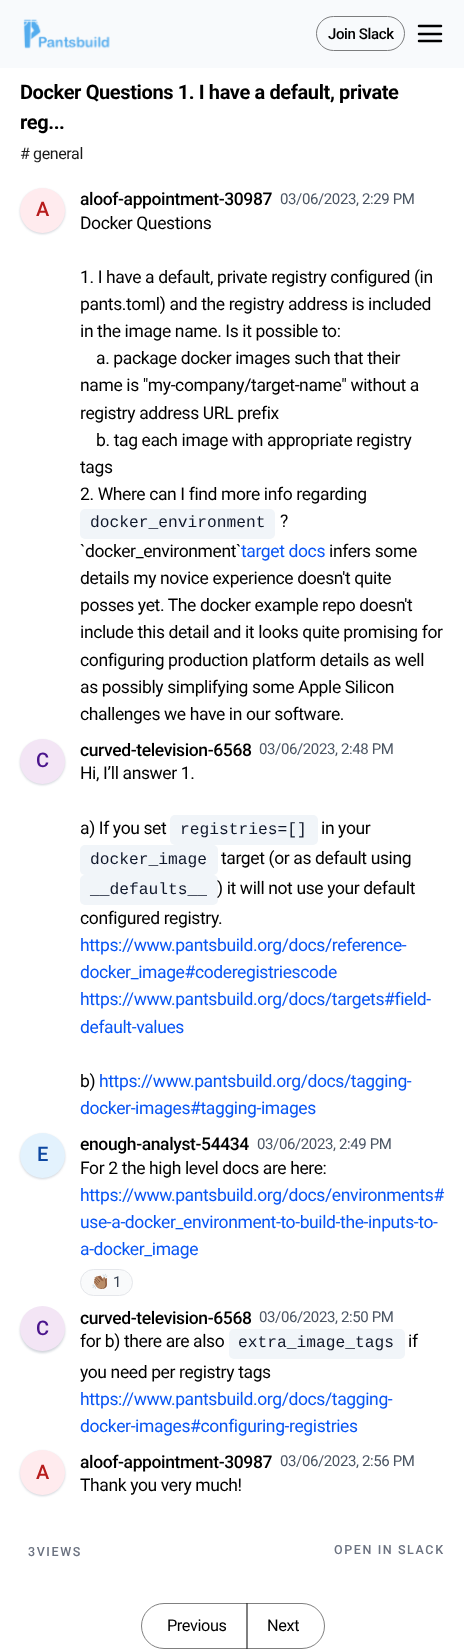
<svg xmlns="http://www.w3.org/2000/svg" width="464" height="1652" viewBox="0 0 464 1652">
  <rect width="100%" height="100%" fill="#fff"/>
  <path d="M0 0h464v68H0z" fill="#f8fafc"/>
  <image x="23" y="19" width="87" height="30" href="img/1.png"/>
  <rect x="316.5" y="16.5" width="88" height="34" rx="17" fill="none" stroke="#7c7d7e"/>
  <path d="M419 34H441M419 26H441M419 41H441" fill="none" stroke="#000" stroke-width="2.5" stroke-linecap="round" stroke-linejoin="round"/>
  <rect x="20" y="189" width="45" height="45" rx="22.5" fill="#d1d5db" filter="blur(1px)"/>
  <circle cx="42.5" cy="210.5" r="22.5" fill="#ffebee"/>
  <rect x="80" y="509" width="195" height="30" rx="5" fill="#f1f5f9"/>
  <rect x="20" y="740" width="45" height="45" rx="22.5" fill="#d1d5db" filter="blur(1px)"/>
  <circle cx="42.5" cy="761.5" r="22.5" fill="#f3e5f5"/>
  <rect x="170" y="815" width="148" height="30" rx="5" fill="#f1f5f9"/>
  <rect x="80" y="845" width="138" height="30" rx="5" fill="#f1f5f9"/>
  <rect x="80" y="875" width="138" height="30" rx="5" fill="#f1f5f9"/>
  <rect x="20" y="1134" width="45" height="45" rx="22.5" fill="#d1d5db" filter="blur(1px)"/>
  <circle cx="42.5" cy="1155.5" r="22.5" fill="#e3f2fd"/>
  <rect x="80.5" y="1269.5" width="52" height="26" rx="13" fill="#f9fafb" stroke="#e5e7eb"/>
  <rect x="20" y="1308" width="45" height="45" rx="22.5" fill="#d1d5db" filter="blur(1px)"/>
  <circle cx="42.5" cy="1328.5" r="22.5" fill="#f3e5f5"/>
  <rect x="229" y="1329" width="176" height="30" rx="5" fill="#f1f5f9"/>
  <rect x="20" y="1451" width="45" height="45" rx="22.5" fill="#d1d5db" filter="blur(1px)"/>
  <circle cx="42.5" cy="1472.5" r="22.5" fill="#ffebee"/>
  <path d="M164 1603.5H247.5V1648.5H164C151.5 1648.5 141.5 1638.5 141.5 1626C141.5 1613.5 151.5 1603.5 164 1603.5Z" fill="none" stroke="#808080"/>
  <path d="M246.5 1603.5H302C314.5 1603.5 324.5 1613.5 324.5 1626C324.5 1638.5 314.5 1648.5 302 1648.5H246.5Z" fill="none" stroke="#00000080"/>
  <text x="328" y="39" font-family="Roboto" font-size="15" font-weight="500" letter-spacing="-0.38" fill="#000">Join Slack</text>
  <g font-family="Roboto" font-size="20" font-weight="bold" letter-spacing="-0.38" fill="#000">
    <text x="20" y="99">Docker Questions 1. I have a default, private</text>
    <text x="20" y="129">reg...</text>
  </g>
  <text x="20" y="159" font-family="Roboto" font-size="16" letter-spacing="-0.38" fill="#1a1a1a"># general</text>
  <text x="36" y="216" font-family="Roboto" font-size="20" font-weight="500" letter-spacing="-0.38" fill="#b71c1c">A</text>
  <text x="80" y="205" font-family="Roboto" font-size="17.5" font-weight="500" letter-spacing="-0.38" fill="#000">aloof-appointment-30987</text>
  <text x="280" y="204" font-family="Roboto" font-size="15" letter-spacing="-0.38" fill="#4b5563">03/06/2023, 2:29 PM</text>
  <g font-family="Roboto" font-size="17.5" letter-spacing="-0.38" fill="#000">
    <text x="80" y="229">Docker Questions</text>
    <text x="80" y="283">1. I have a default, private registry configured (in</text>
    <text x="80" y="310">pants.toml) and the registry address is included</text>
    <text x="80" y="337">in the image name. Is it possible to:</text>
    <text x="96" y="364">a. package docker images such that their</text>
    <text x="80" y="391">name is "my-company/target-name" without a</text>
    <text x="80" y="419">registry address URL prefix</text>
    <text x="96" y="446">b. tag each image with appropriate registry</text>
    <text x="80" y="473">tags</text>
    <text x="80" y="500">2. Where can I find more info regarding</text>
  </g>
  <text x="90" y="527" font-family="Liberation Mono" font-size="16.25" fill="#0f172a">docker_environment</text>
  <g font-family="Roboto" font-size="17.5" letter-spacing="-0.38" fill="#000">
    <text x="280" y="527">?</text>
    <text x="80" y="557">`docker_environment`</text>
  </g>
  <text x="241" y="557" font-family="Roboto" font-size="17.5" letter-spacing="-0.38" fill="#0855f4">target docs</text>
  <g font-family="Roboto" font-size="17.5" letter-spacing="-0.38" fill="#000">
    <text x="329" y="557">infers some</text>
    <text x="80" y="584">details my novice experience doesn't quite</text>
    <text x="80" y="611">posses yet. The docker example repo doesn't</text>
    <text x="80" y="638">include this detail and it looks quite promising for</text>
    <text x="80" y="666">configuring production platform details as well</text>
    <text x="80" y="693">as possibly simplifying some Apple Silicon</text>
    <text x="80" y="720">challenges we have in our software.</text>
  </g>
  <text x="36" y="767" font-family="Roboto" font-size="20" font-weight="500" letter-spacing="-0.38" fill="#4a148c">C</text>
  <text x="80" y="756" font-family="Roboto" font-size="17.5" font-weight="500" letter-spacing="-0.38" fill="#000">curved-television-6568</text>
  <text x="259" y="754" font-family="Roboto" font-size="15" letter-spacing="-0.38" fill="#4b5563">03/06/2023, 2:48 PM</text>
  <g font-family="Roboto" font-size="17.5" letter-spacing="-0.38" fill="#000">
    <text x="80" y="779">Hi, I’ll answer 1.</text>
    <text x="80" y="834">a) If you set</text>
  </g>
  <text x="180" y="834" font-family="Liberation Mono" font-size="16.25" fill="#0f172a">registries=[]</text>
  <text x="321" y="834" font-family="Roboto" font-size="17.5" letter-spacing="-0.38" fill="#000">in your</text>
  <text x="90" y="864" font-family="Liberation Mono" font-size="16.25" fill="#0f172a">docker_image</text>
  <text x="221" y="864" font-family="Roboto" font-size="17.5" letter-spacing="-0.38" fill="#000">target (or as default using</text>
  <text x="90" y="894" font-family="Liberation Mono" font-size="16.25" fill="#0f172a">__defaults__</text>
  <g font-family="Roboto" font-size="17.5" letter-spacing="-0.38" fill="#000">
    <text x="217" y="894">) it will not use your default</text>
    <text x="80" y="924">configured registry.</text>
  </g>
  <g font-family="Roboto" font-size="17.5" letter-spacing="-0.38" fill="#0855f4">
    <text x="80" y="951">https://www.pantsbuild.org/docs/reference-</text>
    <text x="80" y="978">docker_image#coderegistriescode</text>
    <text x="80" y="1005">https://www.pantsbuild.org/docs/targets#field-</text>
    <text x="80" y="1033">default-values</text>
  </g>
  <text x="80" y="1087" font-family="Roboto" font-size="17.5" letter-spacing="-0.38" fill="#000">b)</text>
  <g font-family="Roboto" font-size="17.5" letter-spacing="-0.38" fill="#0855f4">
    <text x="99" y="1087">https://www.pantsbuild.org/docs/tagging-</text>
    <text x="80" y="1114">docker-images#tagging-images</text>
  </g>
  <text x="37" y="1161" font-family="Roboto" font-size="20" font-weight="500" letter-spacing="-0.38" fill="#0d47a1">E</text>
  <text x="80" y="1150" font-family="Roboto" font-size="17.5" font-weight="500" letter-spacing="-0.38" fill="#000">enough-analyst-54434</text>
  <text x="257" y="1149" font-family="Roboto" font-size="15" letter-spacing="-0.38" fill="#4b5563">03/06/2023, 2:49 PM</text>
  <text x="80" y="1174" font-family="Roboto" font-size="17.5" letter-spacing="-0.38" fill="#000">For 2 the high level docs are here:</text>
  <g font-family="Roboto" font-size="17.5" letter-spacing="-0.38" fill="#0855f4">
    <text x="80" y="1201">https://www.pantsbuild.org/docs/environments#</text>
    <text x="80" y="1228">use-a-docker_environment-to-build-the-inputs-to-</text>
    <text x="80" y="1255">a-docker_image</text>
  </g>
  <text x="91" y="1287" font-family="Noto Color Emoji" font-size="15" letter-spacing="-0.38" fill="#374151">👏🏽</text>
  <text x="113" y="1287" font-family="Roboto" font-size="15" letter-spacing="-0.38" fill="#374151">1</text>
  <text x="36" y="1335" font-family="Roboto" font-size="20" font-weight="500" letter-spacing="-0.38" fill="#4a148c">C</text>
  <text x="80" y="1324" font-family="Roboto" font-size="17.5" font-weight="500" letter-spacing="-0.38" fill="#000">curved-television-6568</text>
  <text x="259" y="1322" font-family="Roboto" font-size="15" letter-spacing="-0.38" fill="#4b5563">03/06/2023, 2:50 PM</text>
  <text x="80" y="1347" font-family="Roboto" font-size="17.5" letter-spacing="-0.38" fill="#000">for b) there are also</text>
  <text x="238" y="1347" font-family="Liberation Mono" font-size="16.25" fill="#0f172a">extra_image_tags</text>
  <g font-family="Roboto" font-size="17.5" letter-spacing="-0.38" fill="#000">
    <text x="408" y="1347">if</text>
    <text x="80" y="1378">you need per registry tags</text>
  </g>
  <g font-family="Roboto" font-size="17.5" letter-spacing="-0.38" fill="#0855f4">
    <text x="80" y="1405">https://www.pantsbuild.org/docs/tagging-</text>
    <text x="80" y="1432">docker-images#configuring-registries</text>
  </g>
  <text x="36" y="1479" font-family="Roboto" font-size="20" font-weight="500" letter-spacing="-0.38" fill="#b71c1c">A</text>
  <text x="80" y="1468" font-family="Roboto" font-size="17.5" font-weight="500" letter-spacing="-0.38" fill="#000">aloof-appointment-30987</text>
  <text x="280" y="1466" font-family="Roboto" font-size="15" letter-spacing="-0.38" fill="#4b5563">03/06/2023, 2:56 PM</text>
  <text x="80" y="1491" font-family="Roboto" font-size="17.5" letter-spacing="-0.38" fill="#000">Thank you very much!</text>
  <g font-family="Roboto" font-size="12.5" font-weight="500" letter-spacing="1.6" fill="#6b7280">
    <text x="28" y="1556">3VIEWS</text>
    <text x="334" y="1554">OPEN IN SLACK</text>
  </g>
  <g font-family="Roboto" font-size="16.25" letter-spacing="-0.38" fill="#000">
    <text x="167" y="1631">Previous</text>
    <text x="267" y="1631">Next</text>
  </g>
</svg>
